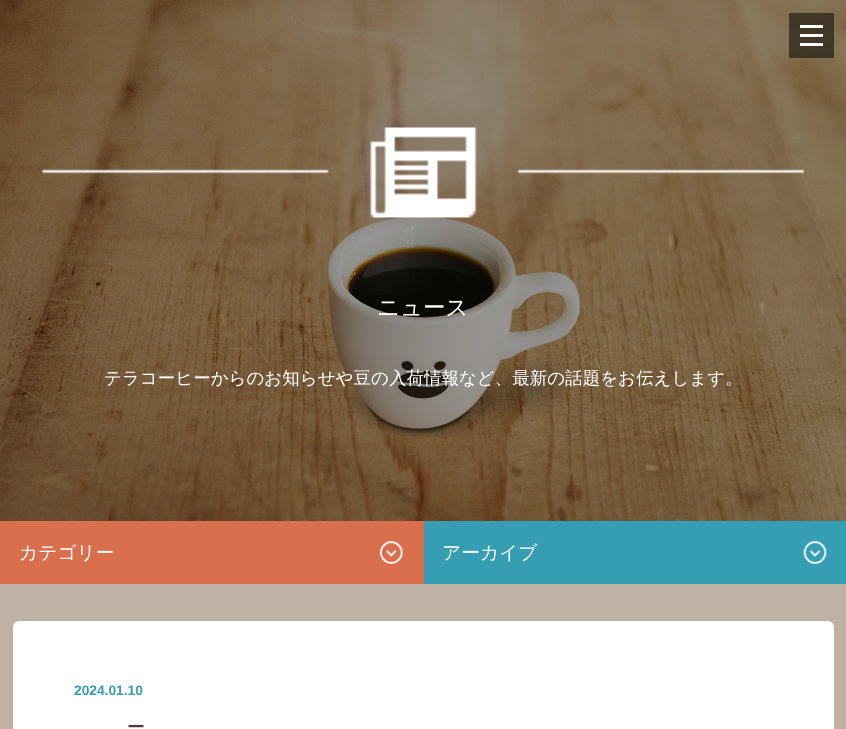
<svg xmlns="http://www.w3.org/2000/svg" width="846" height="729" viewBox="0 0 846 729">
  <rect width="100%" height="100%" fill="#bfb1a3"/>
  <image x="0" y="0" width="846" height="521" href="img/1.png"/>
  <path d="M789 13h45v45H789z" fill="#00000080"/>
  <path d="M800 25h23v3H800z" fill="#fff"/>
  <path d="M800 34h23v3H800z" fill="#fff"/>
  <path d="M800 43h23v3H800z" fill="#fff"/>
  <image x="42" y="127" width="762" height="91" href="img/2.png"/>
  <path d="M0 521h424v63H0z" fill="#d96f4c"/>
  <image x="380" y="541" width="23" height="23" href="img/3.png"/>
  <path d="M424 521h422v63H424z" fill="#369eb3"/>
  <image x="803" y="541" width="24" height="23" href="img/4.png"/>
  <rect x="13" y="621" width="821" height="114" rx="6" fill="#fff"/>
  <text x="377" y="315" font-family="WenQuanYi Zen Hei" font-size="22.5" font-weight="500" fill="#fff">ニュース</text>
  <text x="104" y="384" font-family="WenQuanYi Zen Hei" font-size="17.5" font-weight="500" fill="#fff">テラコーヒーからのお知らせや豆の入荷情報など、最新の話題をお伝えします。</text>
  <g font-family="WenQuanYi Zen Hei" font-size="18.75" font-weight="500" fill="#fff">
    <text x="19" y="559">カテゴリー</text>
    <text x="442" y="559">アーカイブ</text>
  </g>
  <text x="74" y="695" font-family="Liberation Sans" font-size="13.75" font-weight="bold" fill="#369eb3">2024.01.10</text>
  <text x="127" y="733" font-family="WenQuanYi Zen Hei" font-size="17.5" font-weight="bold" fill="#4c3d36">ー</text>
</svg>
